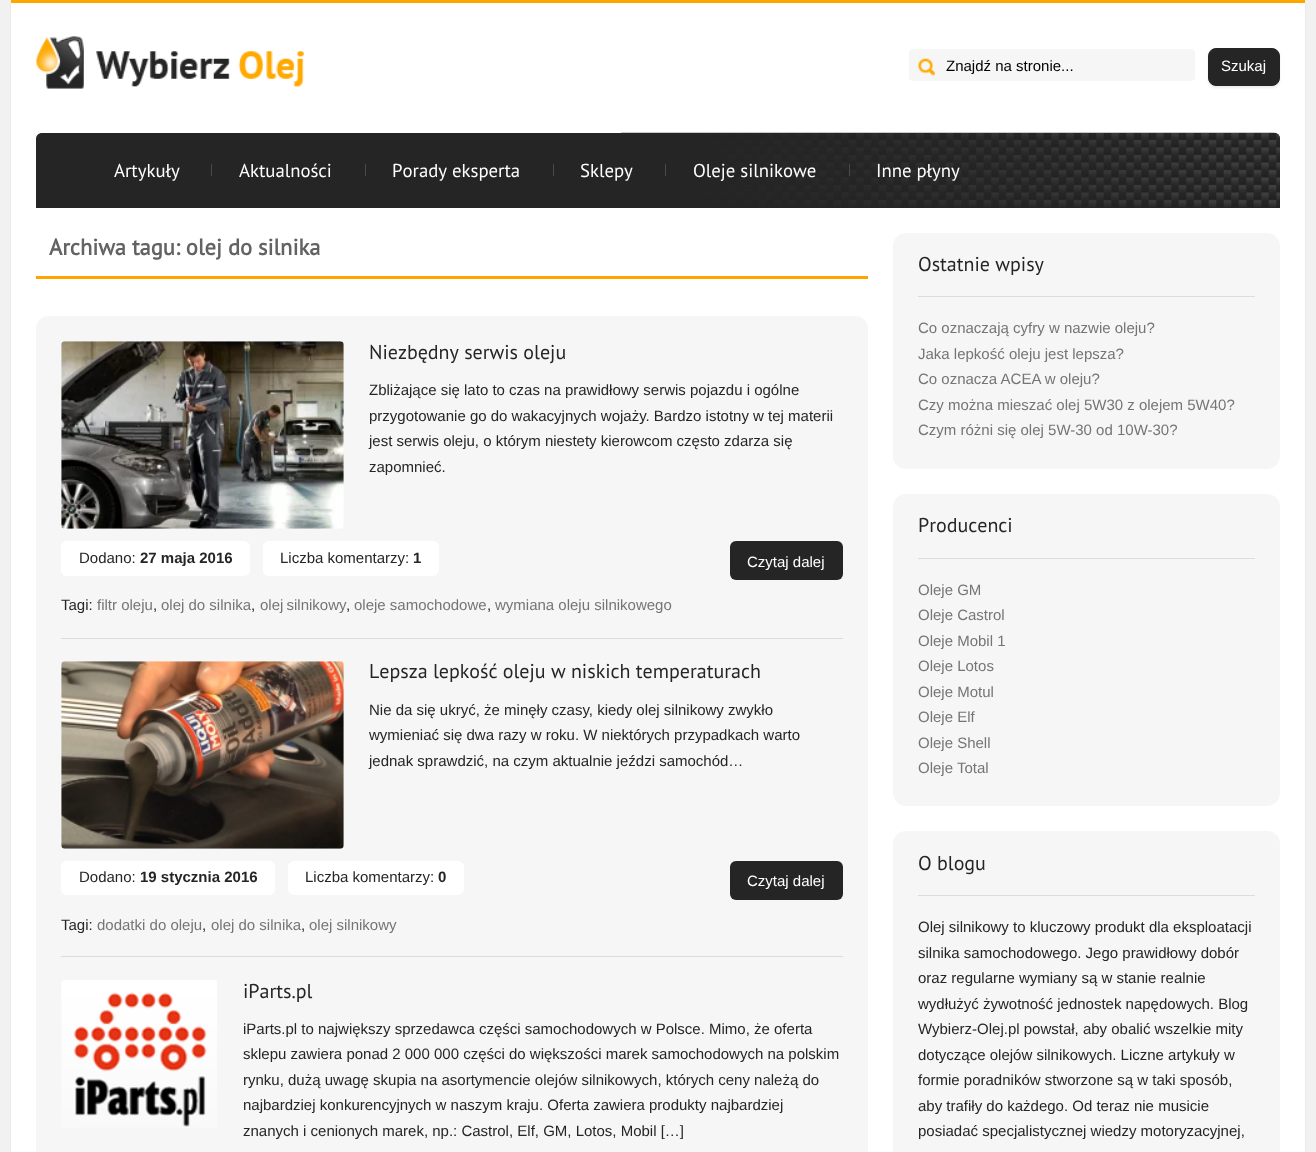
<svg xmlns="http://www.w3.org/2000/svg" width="1316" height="1152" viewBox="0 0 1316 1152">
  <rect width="100%" height="100%" fill="#f1f1f1"/>
  <path d="M11 3h1294v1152H11z" fill="#6464641a" filter="blur(1px)"/>
  <path d="M11 3h1294v1149H11z" fill="#fff"/>
  <path d="M11 0h1294v3H11z" fill="#ffa500"/>
  <image x="36" y="36" width="268" height="53" href="img/1.png"/>
  <rect x="909" y="49" width="286" height="32" rx="4" fill="#f6f6f6"/>
  <image x="917" y="58" width="18" height="18" href="img/2.png"/>
  <rect x="1208" y="49" width="72" height="39" rx="8" fill="#4040401a" filter="blur(1px)"/>
  <rect x="1208.5" y="48.5" width="71" height="37" rx="7.5" fill="#252525" stroke="#252525"/>
  <path d="M42 133H1274C1277.5 133 1280 135.5 1280 139V208H36V139C36 135.5 38.5 133 42 133Z" fill="#252525"/>
  <image x="621" y="132" width="659" height="75" href="img/3.png"/>
  <path d="M211 164h1v12H211z" fill="#4a4a4a"/>
  <path d="M365 164h1v12H365z" fill="#4a4a4a"/>
  <path d="M553 164h1v12H553z" fill="#4a4a4a"/>
  <path d="M665 164h1v12H665z" fill="#4a4a4a"/>
  <path d="M849 164h1v12H849z" fill="#4a4a4a"/>
  <path d="M36 276h832v3H36z" fill="#ffa500"/>
  <rect x="36" y="316" width="832" height="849" rx="13" fill="#f6f6f6"/>
  <image x="61" y="341" width="283" height="188" href="img/4.png"/>
  <rect x="61" y="541" width="189" height="35" rx="6" fill="#fff"/>
  <rect x="263" y="541" width="176" height="35" rx="6" fill="#fff"/>
  <rect x="730" y="541" width="113" height="39" rx="6" fill="#252525"/>
  <path d="M61 638h782v1H61z" fill="#dcdcdc"/>
  <image x="61" y="661" width="283" height="188" href="img/5.png"/>
  <rect x="61" y="861" width="214" height="34" rx="6" fill="#fff"/>
  <rect x="288" y="861" width="176" height="34" rx="6" fill="#fff"/>
  <rect x="730" y="861" width="113" height="39" rx="6" fill="#252525"/>
  <path d="M61 956h782v1H61z" fill="#dcdcdc"/>
  <image x="61" y="980" width="156" height="148" href="img/6.png"/>
  <rect x="893" y="233" width="387" height="236" rx="13" fill="#f6f6f6"/>
  <path d="M918 296h337v1H918z" fill="#dcdcdc"/>
  <rect x="893" y="494" width="387" height="312" rx="13" fill="#f6f6f6"/>
  <path d="M918 558h337v1H918z" fill="#dcdcdc"/>
  <rect x="893" y="831" width="387" height="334" rx="13" fill="#f6f6f6"/>
  <path d="M918 895h337v1H918z" fill="#dcdcdc"/>
  <text x="946" y="71" font-family="Liberation Sans" font-size="15" fill="#000">Znajdź na stronie...</text>
  <text x="1221" y="71" font-family="Liberation Sans" font-size="15" fill="#fff">Szukaj</text>
  <g font-family="PT Sans" font-size="18.75" fill="#fff">
    <text x="114" y="177">Artykuły</text>
    <text x="239" y="177">Aktualności</text>
    <text x="392" y="177">Porady eksperta</text>
    <text x="580" y="177">Sklepy</text>
    <text x="693" y="177">Oleje silnikowe</text>
    <text x="876" y="177">Inne płyny</text>
  </g>
  <text x="49" y="255" font-family="PT Sans" font-size="22.5" font-weight="bold" fill="#636363">Archiwa tagu: olej do silnika</text>
  <text x="369" y="359" font-family="PT Sans" font-size="20" fill="#252525">Niezbędny serwis oleju</text>
  <g font-family="Liberation Sans" font-size="15" fill="#252525">
    <text x="369" y="395">Zbliżające się lato to czas na prawidłowy serwis pojazdu i ogólne</text>
    <text x="369" y="421">przygotowanie go do wakacyjnych wojaży. Bardzo istotny w tej materii</text>
    <text x="369" y="446">jest serwis oleju, o którym niestety kierowcom często zdarza się</text>
    <text x="369" y="472">zapomnieć.</text>
    <text x="79" y="563">Dodano:</text>
  </g>
  <text x="140" y="563" font-family="Liberation Sans" font-size="15" font-weight="bold" fill="#252525">27 maja 2016</text>
  <text x="280" y="563" font-family="Liberation Sans" font-size="15" fill="#252525">Liczba komentarzy:</text>
  <text x="413" y="563" font-family="Liberation Sans" font-size="15" font-weight="bold" fill="#252525">1</text>
  <text x="747" y="567" font-family="Liberation Sans" font-size="15" fill="#fff">Czytaj dalej</text>
  <text x="61" y="610" font-family="Liberation Sans" font-size="15" fill="#252525">Tagi:</text>
  <text x="97" y="610" font-family="Liberation Sans" font-size="15" fill="#757575">filtr oleju</text>
  <text x="153" y="610" font-family="Liberation Sans" font-size="15" fill="#252525">,</text>
  <text x="161" y="610" font-family="Liberation Sans" font-size="15" fill="#757575">olej do silnika</text>
  <text x="251" y="610" font-family="Liberation Sans" font-size="15" fill="#252525">,</text>
  <text x="260" y="610" word-spacing="-1" font-family="Liberation Sans" font-size="15" fill="#757575">olej silnikowy</text>
  <text x="346" y="610" font-family="Liberation Sans" font-size="15" fill="#252525">,</text>
  <text x="354" y="610" font-family="Liberation Sans" font-size="15" fill="#757575">oleje samochodowe</text>
  <text x="487" y="610" font-family="Liberation Sans" font-size="15" fill="#252525">,</text>
  <text x="495" y="610" font-family="Liberation Sans" font-size="15" fill="#757575">wymiana oleju silnikowego</text>
  <text x="369" y="678" font-family="PT Sans" font-size="20" fill="#252525">Lepsza lepkość oleju w niskich temperaturach</text>
  <g font-family="Liberation Sans" font-size="15" fill="#252525">
    <text x="369" y="715">Nie da się ukryć, że minęły czasy, kiedy olej silnikowy zwykło</text>
    <text x="369" y="740">wymieniać się dwa razy w roku. W niektórych przypadkach warto</text>
    <text x="369" y="766">jednak sprawdzić, na czym aktualnie jeździ samochód…</text>
    <text x="79" y="882">Dodano:</text>
  </g>
  <text x="140" y="882" font-family="Liberation Sans" font-size="15" font-weight="bold" fill="#252525">19 stycznia 2016</text>
  <text x="305" y="882" font-family="Liberation Sans" font-size="15" fill="#252525">Liczba komentarzy:</text>
  <text x="438" y="882" font-family="Liberation Sans" font-size="15" font-weight="bold" fill="#252525">0</text>
  <text x="747" y="886" font-family="Liberation Sans" font-size="15" fill="#fff">Czytaj dalej</text>
  <text x="61" y="930" font-family="Liberation Sans" font-size="15" fill="#252525">Tagi:</text>
  <text x="97" y="930" font-family="Liberation Sans" font-size="15" fill="#757575">dodatki do oleju</text>
  <text x="202" y="930" font-family="Liberation Sans" font-size="15" fill="#252525">,</text>
  <text x="211" y="930" font-family="Liberation Sans" font-size="15" fill="#757575">olej do silnika</text>
  <text x="301" y="930" font-family="Liberation Sans" font-size="15" fill="#252525">,</text>
  <text x="309" y="930" font-family="Liberation Sans" font-size="15" fill="#757575">olej silnikowy</text>
  <text x="243" y="998" font-family="PT Sans" font-size="20" fill="#252525">iParts.pl</text>
  <g font-family="Liberation Sans" font-size="15" fill="#252525">
    <text x="243" y="1034">iParts.pl to największy sprzedawca części samochodowych w Polsce. Mimo, że oferta</text>
    <text x="243" y="1059">sklepu zawiera ponad 2 000 000 części do większości marek samochodowych na polskim</text>
    <text x="243" y="1085">rynku, dużą uwagę skupia na asortymencie olejów silnikowych, których ceny należą do</text>
    <text x="243" y="1110">najbardziej konkurencyjnych w naszym kraju. Oferta zawiera produkty najbardziej</text>
    <text x="243" y="1136">znanych i cenionych marek, np.: Castrol, Elf, GM, Lotos, Mobil […]</text>
  </g>
  <text x="918" y="271" font-family="PT Sans" font-size="20" fill="#252525">Ostatnie wpisy</text>
  <g font-family="Liberation Sans" font-size="15" fill="#757575">
    <text x="918" y="333">Co oznaczają cyfry w nazwie oleju?</text>
    <text x="918" y="359">Jaka lepkość oleju jest lepsza?</text>
    <text x="918" y="384">Co oznacza ACEA w oleju?</text>
    <text x="918" y="410">Czy można mieszać olej 5W30 z olejem 5W40?</text>
    <text x="918" y="435">Czym różni się olej 5W-30 od 10W-30?</text>
  </g>
  <text x="918" y="532" font-family="PT Sans" font-size="20" fill="#252525">Producenci</text>
  <g font-family="Liberation Sans" font-size="15" fill="#757575">
    <text x="918" y="595">Oleje GM</text>
    <text x="918" y="620">Oleje Castrol</text>
    <text x="918" y="646">Oleje Mobil 1</text>
    <text x="918" y="671">Oleje Lotos</text>
    <text x="918" y="697">Oleje Motul</text>
    <text x="918" y="722">Oleje Elf</text>
    <text x="918" y="748">Oleje Shell</text>
    <text x="918" y="773">Oleje Total</text>
  </g>
  <text x="918" y="870" font-family="PT Sans" font-size="20" fill="#252525">O blogu</text>
  <g font-family="Liberation Sans" font-size="15" fill="#252525">
    <text x="918" y="932">Olej silnikowy to kluczowy produkt dla eksploatacji</text>
    <text x="918" y="958">silnika samochodowego. Jego prawidłowy dobór</text>
    <text x="918" y="983">oraz regularne wymiany są w stanie realnie</text>
    <text x="918" y="1009">wydłużyć żywotność jednostek napędowych. Blog</text>
    <text x="918" y="1034">Wybierz-Olej.pl powstał, aby obalić wszelkie mity</text>
    <text x="918" y="1060">dotyczące olejów silnikowych. Liczne artykuły w</text>
    <text x="918" y="1085">formie poradników stworzone są w taki sposób,</text>
    <text x="918" y="1111">aby trafiły do każdego. Od teraz nie musicie</text>
    <text x="918" y="1136">posiadać specjalistycznej wiedzy motoryzacyjnej,</text>
  </g>
</svg>
